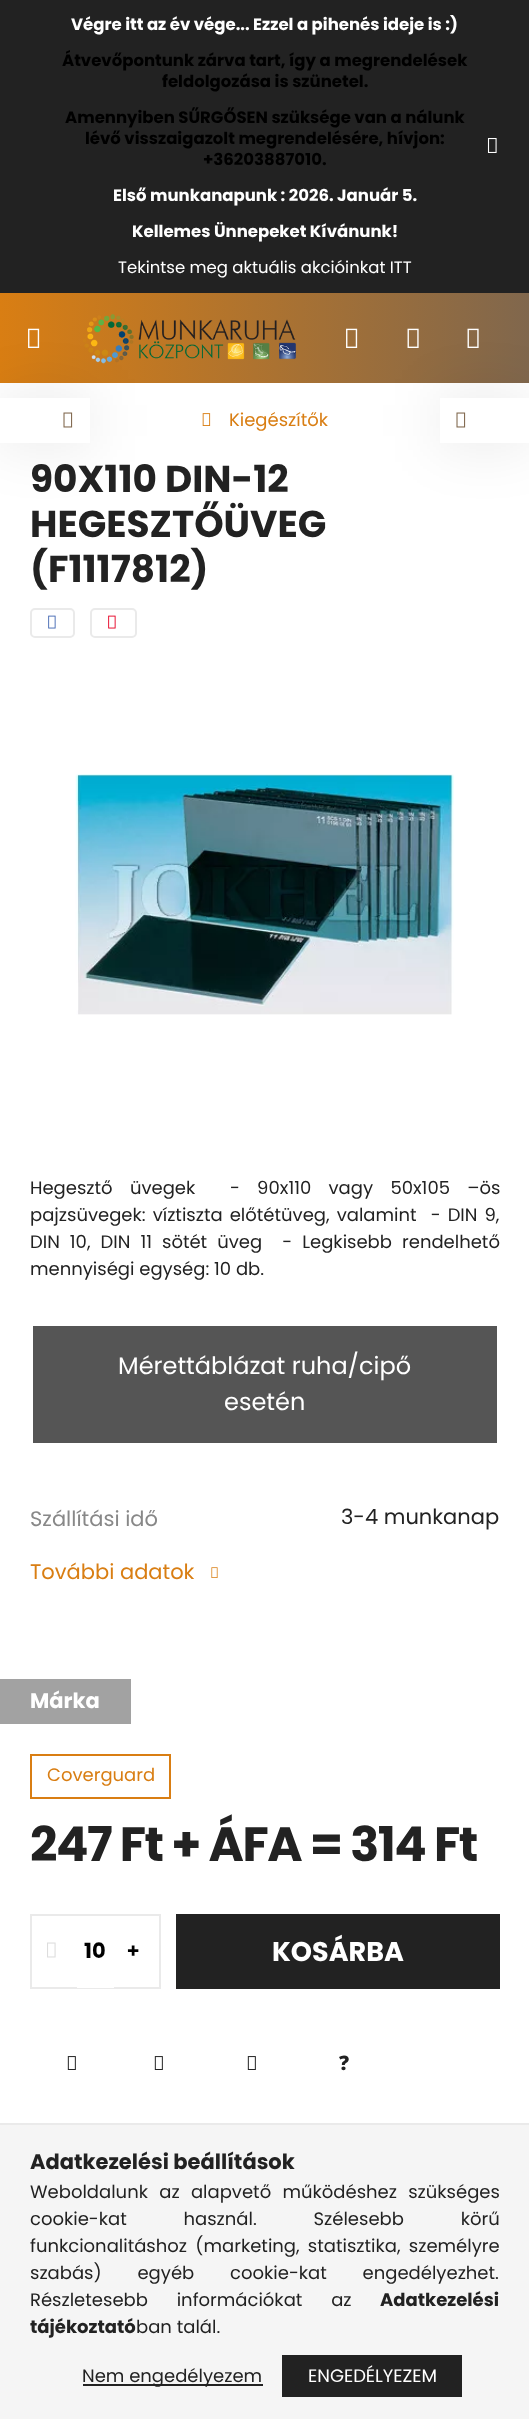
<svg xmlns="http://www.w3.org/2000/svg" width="529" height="2419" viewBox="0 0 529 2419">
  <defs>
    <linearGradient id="g1" gradientUnits="userSpaceOnUse" x1="0" y1="338" x2="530" y2="338"><stop offset="0" stop-color="#d97e13"/><stop offset="1" stop-color="#80674d"/></linearGradient>
    <linearGradient id="g2" gradientUnits="userSpaceOnUse" x1="-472" y1="1952" x2="500" y2="1952"><stop offset="0" stop-color="#d97e13"/><stop offset="0.33" stop-color="#80674d"/><stop offset="0.67" stop-color="#222"/><stop offset="1" stop-color="#222"/></linearGradient>
    <linearGradient id="g3" gradientUnits="userSpaceOnUse" x1="-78" y1="2376" x2="462" y2="2376"><stop offset="0" stop-color="#d97e13"/><stop offset="0.33" stop-color="#80674d"/><stop offset="0.67" stop-color="#222"/><stop offset="1" stop-color="#222"/></linearGradient>
  </defs>
  <rect width="100%" height="100%" fill="#fff"/>
  <path d="M0 0h529v293H0z" fill="#222"/>
  <image x="487" y="138" width="10" height="15" href="img/1.png"/>
  <path d="M0 293h529v90H0z" fill="url(#g1)"/>
  <image x="28" y="328" width="12" height="20" href="img/2.png"/>
  <image x="83" y="314" width="213" height="50" href="img/3.png"/>
  <image x="346" y="328" width="12" height="20" href="img/4.png"/>
  <image x="407" y="328" width="12" height="20" href="img/5.png"/>
  <image x="467" y="328" width="12" height="20" href="img/6.png"/>
  <path d="M0 398h90v45H0z" fill="#0000001a" filter="blur(30px)"/>
  <path d="M0 398h90v45H0z" fill="#fff"/>
  <image x="63" y="412" width="10" height="16" href="img/7.png"/>
  <image x="202" y="413" width="9" height="13" href="img/8.png"/>
  <path d="M440 398h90v45H440z" fill="#0000001a" filter="blur(30px)"/>
  <path d="M440 398h89v45H440z" fill="#fff"/>
  <image x="456" y="412" width="10" height="16" href="img/7.png"/>
  <rect x="31" y="609" width="43" height="28" rx="4" fill="none" stroke="#eaeaea" stroke-width="2"/>
  <image x="48" y="615" width="8" height="14" href="img/9.png"/>
  <rect x="91" y="609" width="45" height="28" rx="4" fill="none" stroke="#eaeaea" stroke-width="2"/>
  <image x="108" y="615" width="8" height="14" href="img/10.png"/>
  <image x="75" y="774" width="379" height="241" href="img/11.png"/>
  <path d="M33 1326h464v117H33z" fill="#555"/>
  <image x="211" y="1567" width="7" height="11" href="img/12.png"/>
  <path d="M0 1679h131v45H0z" fill="#a2a2a2"/>
  <path d="M31 1755h139v43H31z" fill="none" stroke="#d97e13" stroke-width="2"/>
  <path d="M31 1915h129v73H31z" fill="none" stroke="#eaeaea" stroke-width="2"/>
  <image x="47" y="1942" width="9" height="16" href="img/13.png"/>
  <path d="M77 1987h37v1H77z" fill="#fff"/>
  <path d="M176 1914h324v75H176z" fill="url(#g2)"/>
  <image x="67" y="2056" width="9" height="14" href="img/14.png"/>
  <image x="154" y="2056" width="9" height="14" href="img/14.png"/>
  <image x="247" y="2056" width="9" height="14" href="img/14.png"/>
  <path d="M0 2125h529v294H0z" fill="#f5f5f5"/>
  <path d="M0 2123h529v2H0z" fill="#eaeaea"/>
  <path d="M83 2384h180v2H83z" fill="#222"/>
  <path d="M282 2355h180v42H282z" fill="url(#g3)"/>
  <text x="71" y="30" font-family="Poppins" font-size="16.5" font-weight="bold" fill="#fff">Végre itt az év vége... Ezzel a pihenés ideje is :)</text>
  <g font-family="Poppins" font-size="16.5" font-weight="bold" fill="#000">
    <text x="62" y="66">Átvevőpontunk zárva tart, így a megrendelések</text>
    <text x="162" y="87">feldolgozása is szünetel.</text>
    <text x="65" y="123">Amennyiben SŰRGŐSEN szüksége van a nálunk</text>
    <text x="85" y="144">lévő visszaigazolt megrendelésére, hívjon:</text>
    <text x="203" y="165">+36203887010.</text>
  </g>
  <g font-family="Poppins" font-size="16.5" font-weight="bold" fill="#fff">
    <text x="113" y="201">Első munkanapunk : 2026. Január 5.</text>
    <text x="132" y="237">Kellemes Ünnepeket Kívánunk!</text>
  </g>
  <text x="118" y="273" font-family="Poppins" font-size="16.5" fill="#fff">Tekintse meg aktuális akcióinkat ITT</text>
  <text x="229" y="426" font-family="Poppins" font-size="18" fill="#d97e13">Kiegészítők</text>
  <g font-family="Poppins" font-size="37.5" font-weight="bold" fill="#222">
    <text x="30" y="492">90X110 DIN-12</text>
    <text x="30" y="537">HEGESZTŐÜVEG</text>
    <text x="30" y="582">(F1117812)</text>
  </g>
  <g font-family="Poppins" font-size="18" fill="#222">
    <text x="30" y="1194" word-spacing="12.5" xml:space="preserve">Hegesztő üvegek  - 90x110 vagy 50x105 –ös</text>
    <text x="30" y="1221" word-spacing="2.25" xml:space="preserve">pajzsüvegek: víztiszta előtétüveg, valamint  - DIN 9,</text>
    <text x="30" y="1248" word-spacing="5.25" xml:space="preserve">DIN 10, DIN 11 sötét üveg  - Legkisebb rendelhető</text>
    <text x="30" y="1275">mennyiségi egység: 10 db.</text>
  </g>
  <g font-family="Poppins" font-size="24" fill="#fff">
    <text x="118" y="1374">Mérettáblázat ruha/cipő</text>
    <text x="224" y="1410">esetén</text>
  </g>
  <text x="30" y="1526" font-family="Poppins" font-size="21" fill="#888">Szállítási idő</text>
  <text x="341" y="1524" font-family="Poppins" font-size="21" fill="#222">3-4 munkanap</text>
  <text x="30" y="1579" font-family="Poppins" font-size="21" fill="#d97e13">További adatok</text>
  <text x="30" y="1708" font-family="Poppins" font-size="21" font-weight="bold" fill="#fff">Márka</text>
  <text x="47" y="1781" font-family="Poppins" font-size="18" fill="#d97e13">Coverguard</text>
  <text x="30" y="1861" font-family="Poppins" font-size="48" font-weight="bold" letter-spacing="-1.5" fill="#222">247 Ft + ÁFA = 314 Ft</text>
  <text x="84" y="1958" font-family="Poppins" font-size="21" font-weight="bold" fill="#000">10</text>
  <text x="127" y="1958" font-family="Noto Sans" font-size="21" font-weight="900" fill="#000">+</text>
  <text x="272" y="1961" font-family="Poppins" font-size="27" font-weight="bold" fill="#fff">KOSÁRBA</text>
  <text x="339" y="2070" font-family="Noto Sans" font-size="20" font-weight="900" fill="#222">?</text>
  <text x="30" y="2169" font-family="Poppins" font-size="21" font-weight="bold" fill="#222">Adatkezelési beállítások</text>
  <g font-family="Poppins" font-size="18" fill="#222">
    <text x="30" y="2198" word-spacing="6.5">Weboldalunk az alapvető működéshez szükséges</text>
    <text x="30" y="2225" word-spacing="52">cookie-kat használ. Szélesebb körű</text>
    <text x="30" y="2252" word-spacing="3.5">funkcionalitáshoz (marketing, statisztika, személyre</text>
    <text x="30" y="2279" word-spacing="31">szabás) egyéb cookie-kat engedélyezhet.</text>
    <text x="30" y="2306" word-spacing="24">Részletesebb információkat az</text>
  </g>
  <g font-family="Poppins" font-size="18" font-weight="bold" fill="#222">
    <text x="380" y="2306">Adatkezelési</text>
    <text x="30" y="2333">tájékoztató</text>
  </g>
  <g font-family="Poppins" font-size="18" fill="#222">
    <text x="136" y="2333">ban talál.</text>
    <text x="82" y="2382">Nem engedélyezem</text>
  </g>
  <text x="308" y="2382" font-family="Poppins" font-size="18" fill="#fff">ENGEDÉLYEZEM</text>
</svg>
